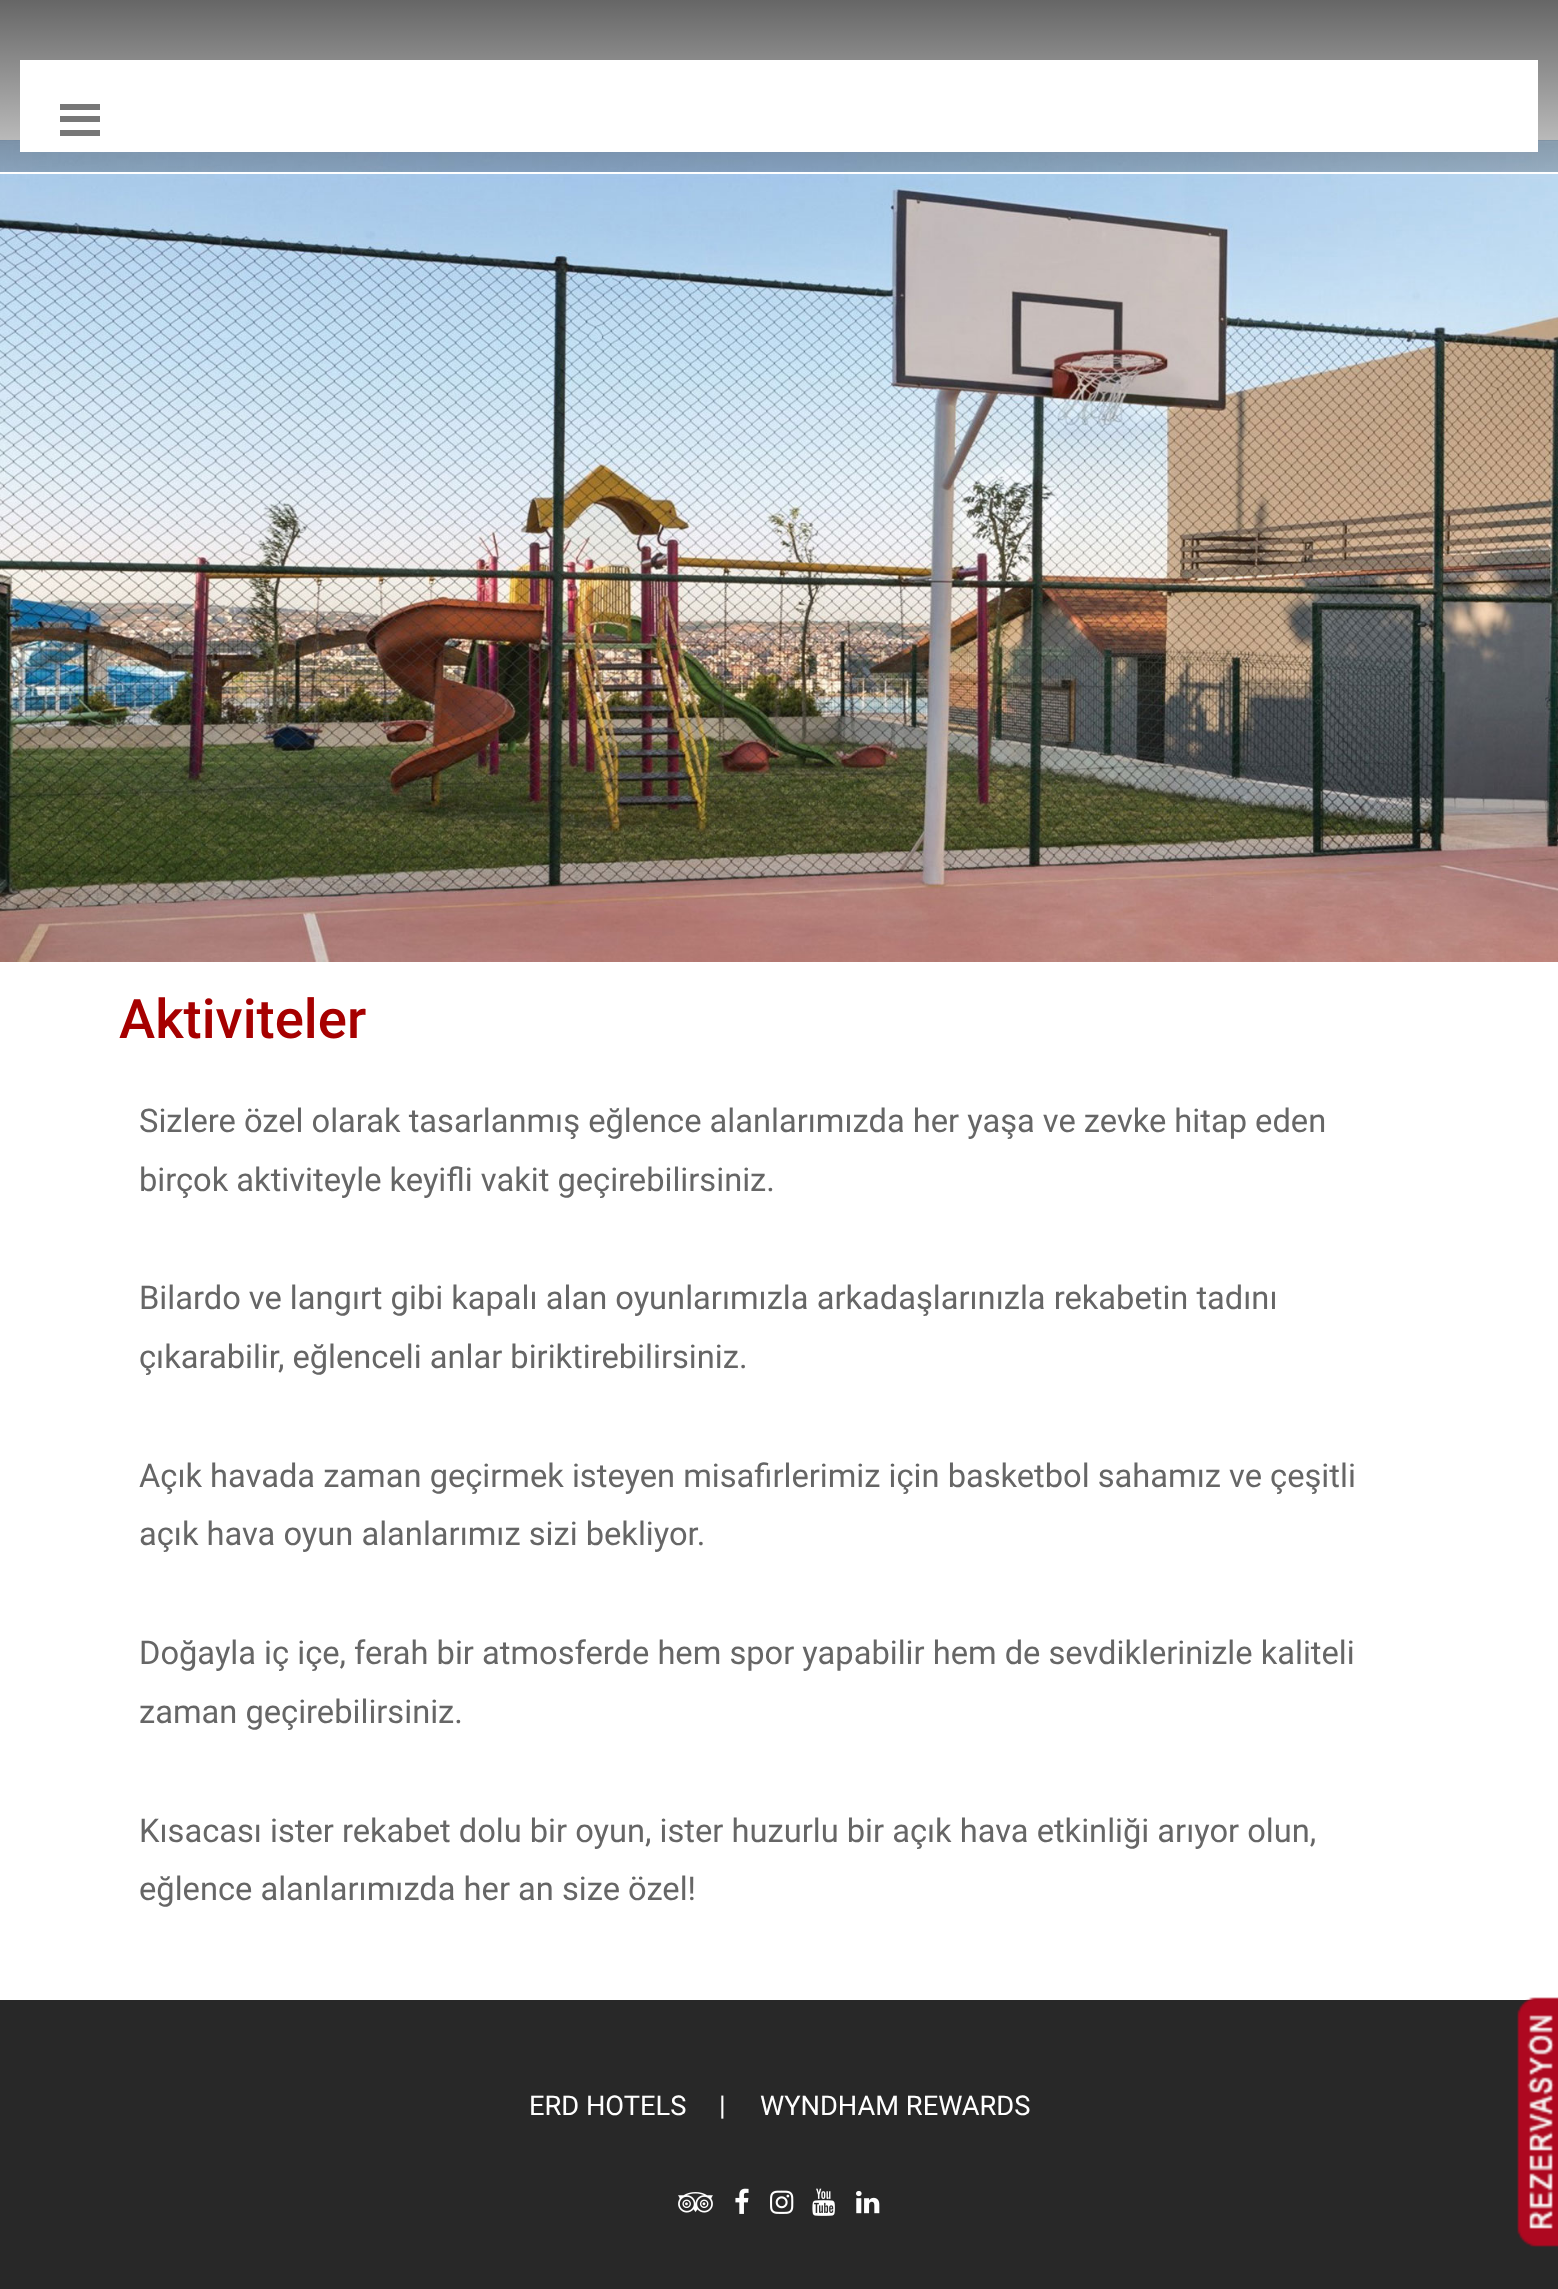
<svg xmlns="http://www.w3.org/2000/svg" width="1558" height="2289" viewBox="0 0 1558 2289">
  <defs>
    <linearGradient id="g1" gradientUnits="userSpaceOnUse" x1="779" y1="0" x2="779" y2="172"><stop offset="0" stop-color="#000" stop-opacity="0.6"/><stop offset="1" stop-color="#000" stop-opacity="0.2"/></linearGradient>
  </defs>
  <rect width="100%" height="100%" fill="#fff"/>
  <image x="0" y="140" width="1558" height="822" href="img/1.png"/>
  <path d="M0 0h1558v172H0z" fill="url(#g1)"/>
  <path d="M0 172h1558v2H0z" fill="#fff"/>
  <path d="M20 60h1518v92H20z" fill="#fff"/>
  <path d="M60 104h40v6H60z" fill="#777"/>
  <path d="M60 116h40v6H60z" fill="#777"/>
  <path d="M60 130h40v6H60z" fill="#777"/>
  <path d="M0 2000h1558v289H0z" fill="#282828"/>
  <image x="678" y="2192" width="35" height="21" href="img/2.png"/>
  <image x="735" y="2188" width="14" height="26" href="img/3.png"/>
  <image x="770" y="2190" width="24" height="24" href="img/4.png"/>
  <image x="812" y="2188" width="23" height="28" href="img/5.png"/>
  <image x="856" y="2190" width="24" height="24" href="img/6.png"/>
  <image x="1517" y="1997" width="41" height="250" href="img/7.png"/>
  <text x="119" y="1038" font-family="Roboto" font-size="54.5" font-weight="500" fill="#a60000">Aktiviteler</text>
  <g font-family="Roboto" font-size="32.65" fill="#666">
    <text x="139" y="1132">Sizlere özel olarak tasarlanmış eğlence alanlarımızda her yaşa ve zevke hitap eden</text>
    <text x="139" y="1191">birçok aktiviteyle keyifli vakit geçirebilirsiniz.</text>
    <text x="139" y="1309">Bilardo ve langırt gibi kapalı alan oyunlarımızla arkadaşlarınızla rekabetin tadını</text>
    <text x="139" y="1368">çıkarabilir, eğlenceli anlar biriktirebilirsiniz.</text>
    <text x="139" y="1487">Açık havada zaman geçirmek isteyen misafirlerimiz için basketbol sahamız ve çeşitli</text>
    <text x="139" y="1545">açık hava oyun alanlarımız sizi bekliyor.</text>
    <text x="139" y="1664">Doğayla iç içe, ferah bir atmosferde hem spor yapabilir hem de sevdiklerinizle kaliteli</text>
    <text x="139" y="1723">zaman geçirebilirsiniz.</text>
    <text x="139" y="1842">Kısacası ister rekabet dolu bir oyun, ister huzurlu bir açık hava etkinliği arıyor olun,</text>
    <text x="139" y="1900">eğlence alanlarımızda her an size özel!</text>
  </g>
  <g font-family="Roboto" font-size="27.25" fill="#fff">
    <text x="529" y="2115">ERD HOTELS</text>
    <text x="719" y="2115">|</text>
    <text x="760" y="2115">WYNDHAM REWARDS</text>
  </g>
</svg>
